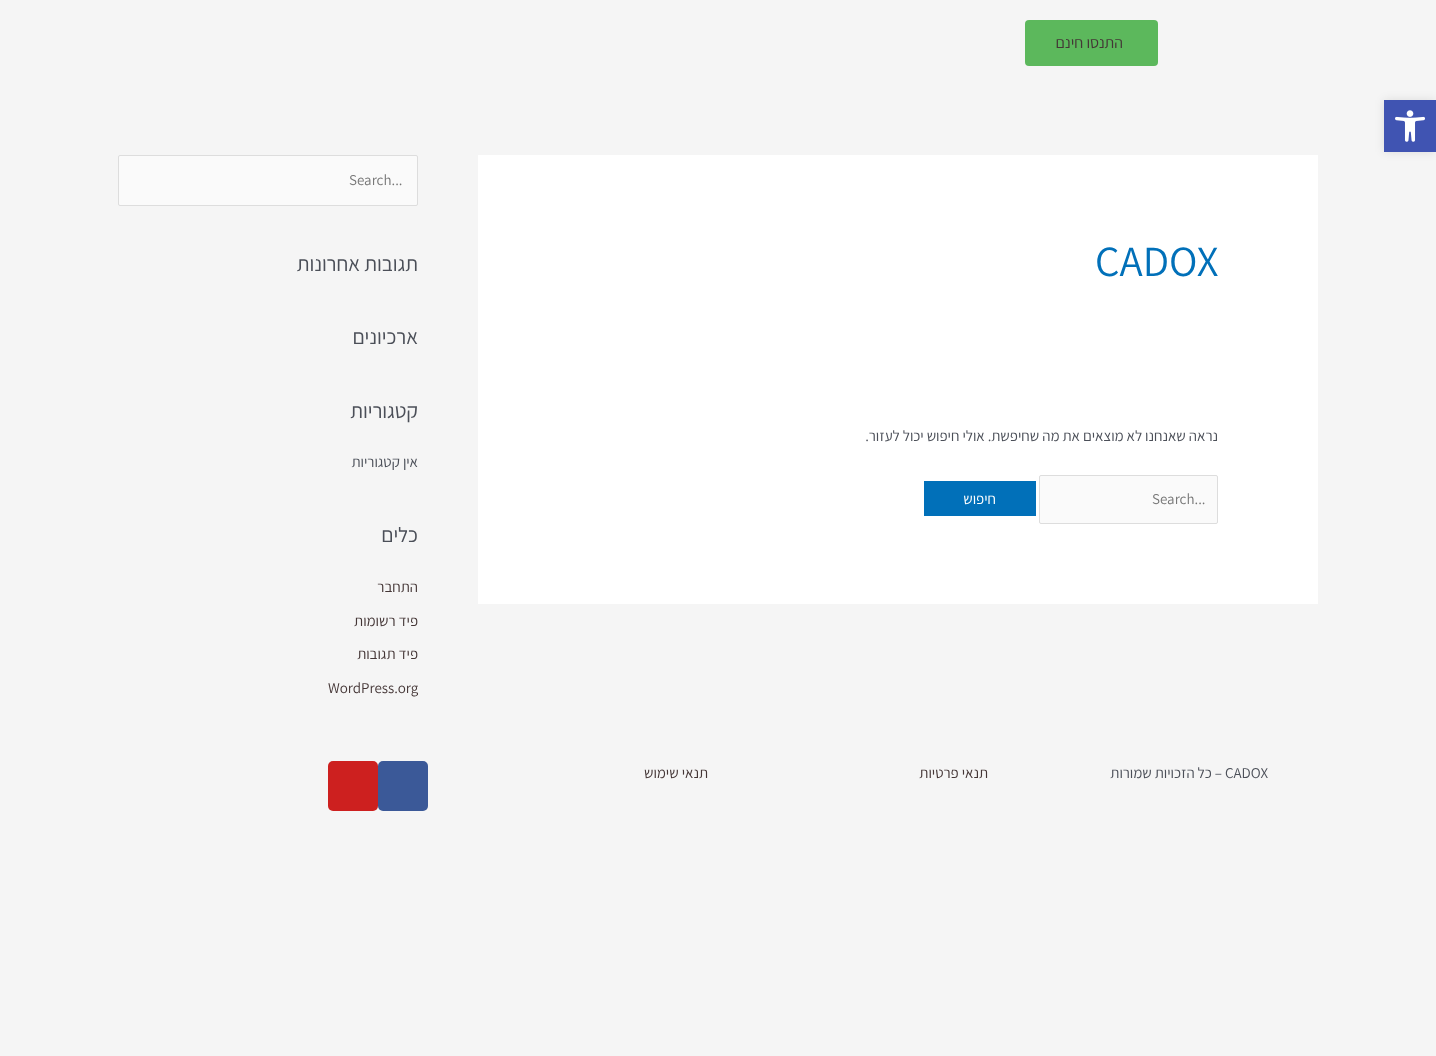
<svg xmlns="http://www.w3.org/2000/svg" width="1436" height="1056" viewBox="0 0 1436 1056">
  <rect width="100%" height="100%" fill="#f5f5f5"/>
  <path d="M1384 100h52v52H1384z" fill="#0000001a" filter="blur(5px)"/>
  <path d="M1384 100h52v52H1384z" fill="#4054b2"/>
  <image x="1395" y="110" width="30" height="32" href="img/1.png"/>
  <rect x="1025" y="20" width="133" height="46" rx="4" fill="#5cb85c"/>
  <path d="M478 155h840v449H478z" fill="#fff"/>
  <rect x="1039.5" y="475.5" width="178" height="48" rx="1.5" fill="#fafafa" stroke="#ddd"/>
  <path d="M924 481h112v35H924z" fill="#0170b9"/>
  <rect x="118.5" y="155.5" width="299" height="50" rx="1.5" fill="#fafafa" stroke="#ddd"/>
  <rect x="378" y="761" width="50" height="50" rx="5" fill="#3b5998"/>
  <rect x="328" y="761" width="50" height="50" rx="5" fill="#cd201f"/>
  <text x="1123" y="48" font-family="Assistant" font-size="16" font-weight="200" direction="rtl" fill="#443636">התנסו חינם</text>
  <text x="1095" y="276" font-family="Assistant" font-size="43" font-weight="200" fill="#0170b9">CADOX</text>
  <text x="1218" y="441" font-family="Assistant" font-size="15" font-weight="200" direction="rtl" fill="#4b4f58">נראה שאנחנו לא מוצאים את מה שחיפשת. אולי חיפוש יכול לעזור.</text>
  <text x="1152" y="504" font-family="Assistant" font-size="15" font-weight="200" fill="#757575">Search...</text>
  <text x="996" y="504" font-family="Assistant" font-size="15" font-weight="200" direction="rtl" fill="#fff">חיפוש</text>
  <text x="349" y="185" font-family="Assistant" font-size="15" font-weight="200" fill="#757575">Search...</text>
  <g font-family="Assistant" font-size="21" font-weight="200" direction="rtl" fill="#4b4f58">
    <text x="418" y="271">תגובות אחרונות</text>
    <text x="418" y="344">ארכיונים</text>
    <text x="418" y="418">קטגוריות</text>
  </g>
  <text x="418" y="467" font-family="Assistant" font-size="15" font-weight="200" direction="rtl" fill="#4b4f58">אין קטגוריות</text>
  <text x="418" y="542" font-family="Assistant" font-size="21" font-weight="200" direction="rtl" fill="#4b4f58">כלים</text>
  <g font-family="Assistant" font-size="15" font-weight="200" direction="rtl" fill="#443636">
    <text x="418" y="592">התחבר</text>
    <text x="418" y="626">פיד רשומות</text>
    <text x="418" y="659">פיד תגובות</text>
  </g>
  <text x="328" y="693" font-family="Assistant" font-size="15" font-weight="200" fill="#443636">WordPress.org</text>
  <text x="1225" y="778" font-family="Assistant" font-size="15" font-weight="200" fill="#4b4f58">CADOX</text>
  <text x="1222" y="778" font-family="Assistant" font-size="15" font-weight="200" direction="rtl" fill="#4b4f58">– כל הזכויות שמורות</text>
  <g font-family="Assistant" font-size="15" font-weight="200" direction="rtl" fill="#443636">
    <text x="988" y="778">תנאי פרטיות</text>
    <text x="708" y="778">תנאי שימוש</text>
  </g>
</svg>
